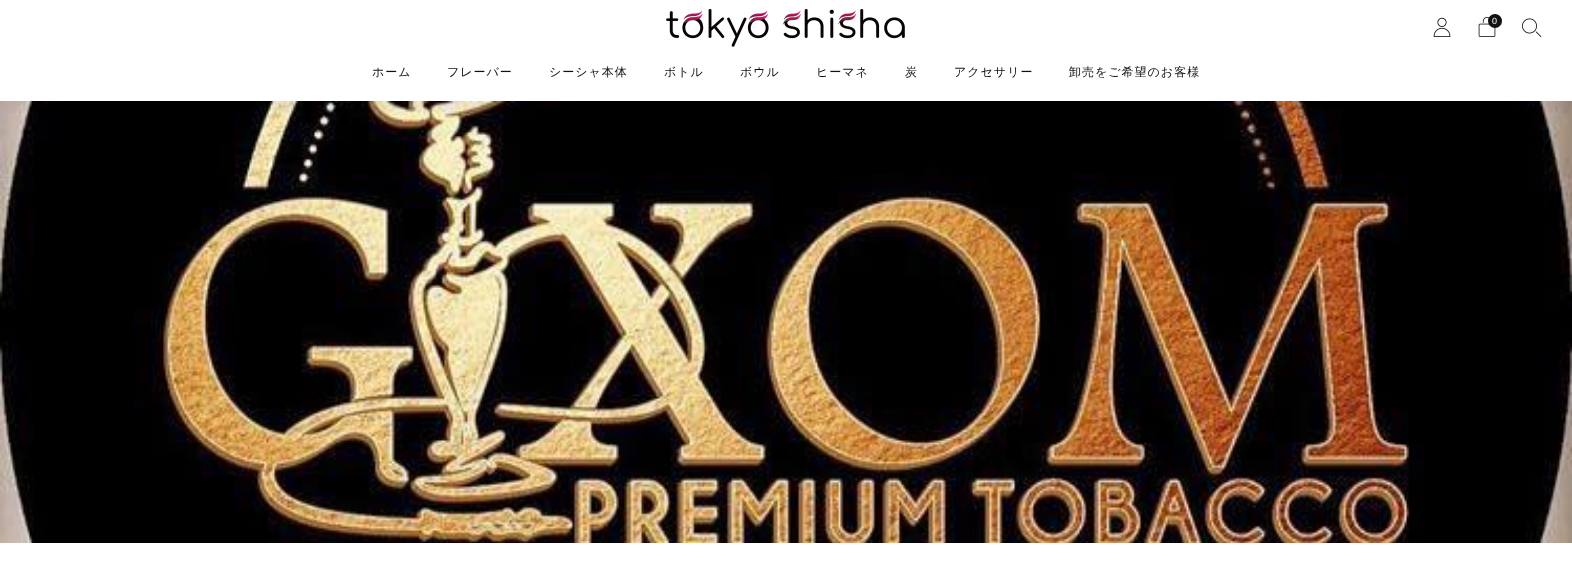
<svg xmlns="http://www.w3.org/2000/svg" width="1572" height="564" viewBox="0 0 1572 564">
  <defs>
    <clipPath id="clip1"><path d="M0 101h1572v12H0z"/></clipPath>
  </defs>
  <rect width="100%" height="100%" fill="#fff"/>
  <image x="0" y="101" width="1572" height="442" href="img/5.png"/>
  <g clip-path="url(#clip1)">
    <path d="M0 4h1572v101H0z" fill="#00000014" filter="blur(12px)"/>
  </g>
  <image x="666" y="9" width="239" height="38" href="img/1.png"/>
  <image x="1433" y="17" width="18" height="20" href="img/2.png"/>
  <image x="1478" y="17" width="18" height="20" href="img/3.png"/>
  <circle cx="1495" cy="21" r="7" fill="#111"/>
  <image x="1522" y="18" width="20" height="19" href="img/4.png"/>
  <text x="1492" y="24" font-family="Liberation Sans" font-size="9" fill="#fff">0</text>
  <g font-family="WenQuanYi Zen Hei" font-size="12" font-weight="500" letter-spacing="1" fill="#111">
    <text x="372" y="76">ホーム</text>
    <text x="447" y="76">フレーバー</text>
    <text x="549" y="76">シーシャ本体</text>
    <text x="664" y="76">ボトル</text>
    <text x="740" y="76">ボウル</text>
    <text x="816" y="76">ヒーマネ</text>
    <text x="905" y="76">炭</text>
    <text x="954" y="76">アクセサリー</text>
    <text x="1069" y="76">卸売をご希望のお客様</text>
  </g>
</svg>
